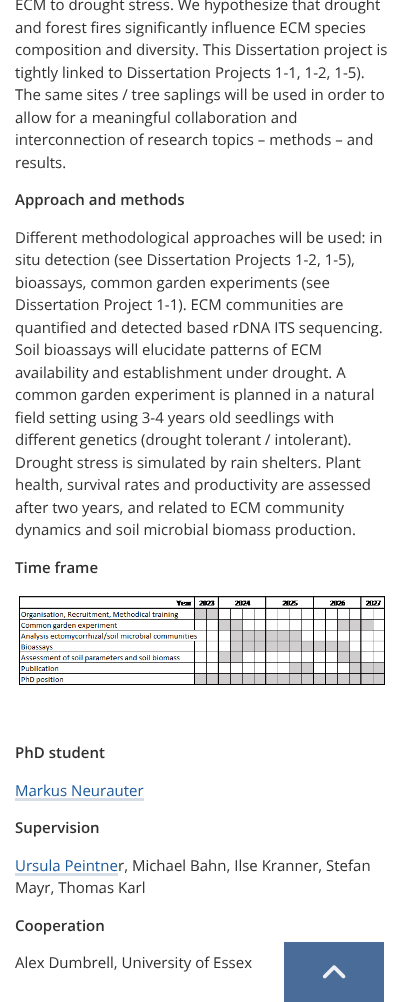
<svg xmlns="http://www.w3.org/2000/svg" width="404" height="1002" viewBox="0 0 404 1002">
  <rect width="100%" height="100%" fill="#fff"/>
  <image x="19" y="596" width="366" height="89" href="img/1.png"/>
  <path d="M15 798h129v3H15z" fill="#d7dee8"/>
  <path d="M15 873h103v3H15z" fill="#d7dee8"/>
  <path d="M284 942h100v60H284z" fill="#496c99"/>
  <image x="322" y="965" width="24" height="14" href="img/2.png"/>
  <g font-family="Open Sans" font-size="15" fill="#303030">
    <text x="15" y="10">ECM to drought stress. We hypothesize that drought</text>
    <text x="15" y="33">and forest fires significantly influence ECM species</text>
    <text x="15" y="55">composition and diversity. This Dissertation project is</text>
    <text x="15" y="78">tightly linked to Dissertation Projects 1-1, 1-2, 1-5).</text>
    <text x="15" y="100">The same sites / tree saplings will be used in order to</text>
    <text x="15" y="123">allow for a meaningful collaboration and</text>
    <text x="15" y="145">interconnection of research topics – methods – and</text>
    <text x="15" y="168">results.</text>
  </g>
  <text x="15" y="205" font-family="Open Sans" font-size="15" font-weight="600" fill="#303030">Approach and methods</text>
  <g font-family="Open Sans" font-size="15" fill="#303030">
    <text x="15" y="243">Different methodological approaches will be used: in</text>
    <text x="15" y="265">situ detection (see Dissertation Projects 1-2, 1-5),</text>
    <text x="15" y="288">bioassays, common garden experiments (see</text>
    <text x="15" y="310">Dissertation Project 1-1). ECM communities are</text>
    <text x="15" y="333">quantified and detected based rDNA ITS sequencing.</text>
    <text x="15" y="355">Soil bioassays will elucidate patterns of ECM</text>
    <text x="15" y="378">availability and establishment under drought. A</text>
    <text x="15" y="400">common garden experiment is planned in a natural</text>
    <text x="15" y="423">field setting using 3-4 years old seedlings with</text>
    <text x="15" y="445">different genetics (drought tolerant / intolerant).</text>
    <text x="15" y="468">Drought stress is simulated by rain shelters. Plant</text>
    <text x="15" y="490">health, survival rates and productivity are assessed</text>
    <text x="15" y="513">after two years, and related to ECM community</text>
    <text x="15" y="535">dynamics and soil microbial biomass production.</text>
  </g>
  <g font-family="Open Sans" font-size="15" font-weight="600" fill="#303030">
    <text x="15" y="573">Time frame</text>
    <text x="15" y="758">PhD student</text>
  </g>
  <text x="15" y="796" font-family="Open Sans" font-size="15" fill="#1b599c">Markus Neurauter</text>
  <text x="15" y="833" font-family="Open Sans" font-size="15" font-weight="600" fill="#303030">Supervision</text>
  <text x="15" y="871" font-family="Open Sans" font-size="15" fill="#1b599c">Ursula Peintne</text>
  <g font-family="Open Sans" font-size="15" fill="#303030">
    <text x="118" y="871">r, Michael Bahn, Ilse Kranner, Stefan</text>
    <text x="15" y="893">Mayr, Thomas Karl</text>
  </g>
  <text x="15" y="931" font-family="Open Sans" font-size="15" font-weight="600" fill="#303030">Cooperation</text>
  <text x="15" y="968" font-family="Open Sans" font-size="15" fill="#303030">Alex Dumbrell, University of Essex</text>
</svg>
